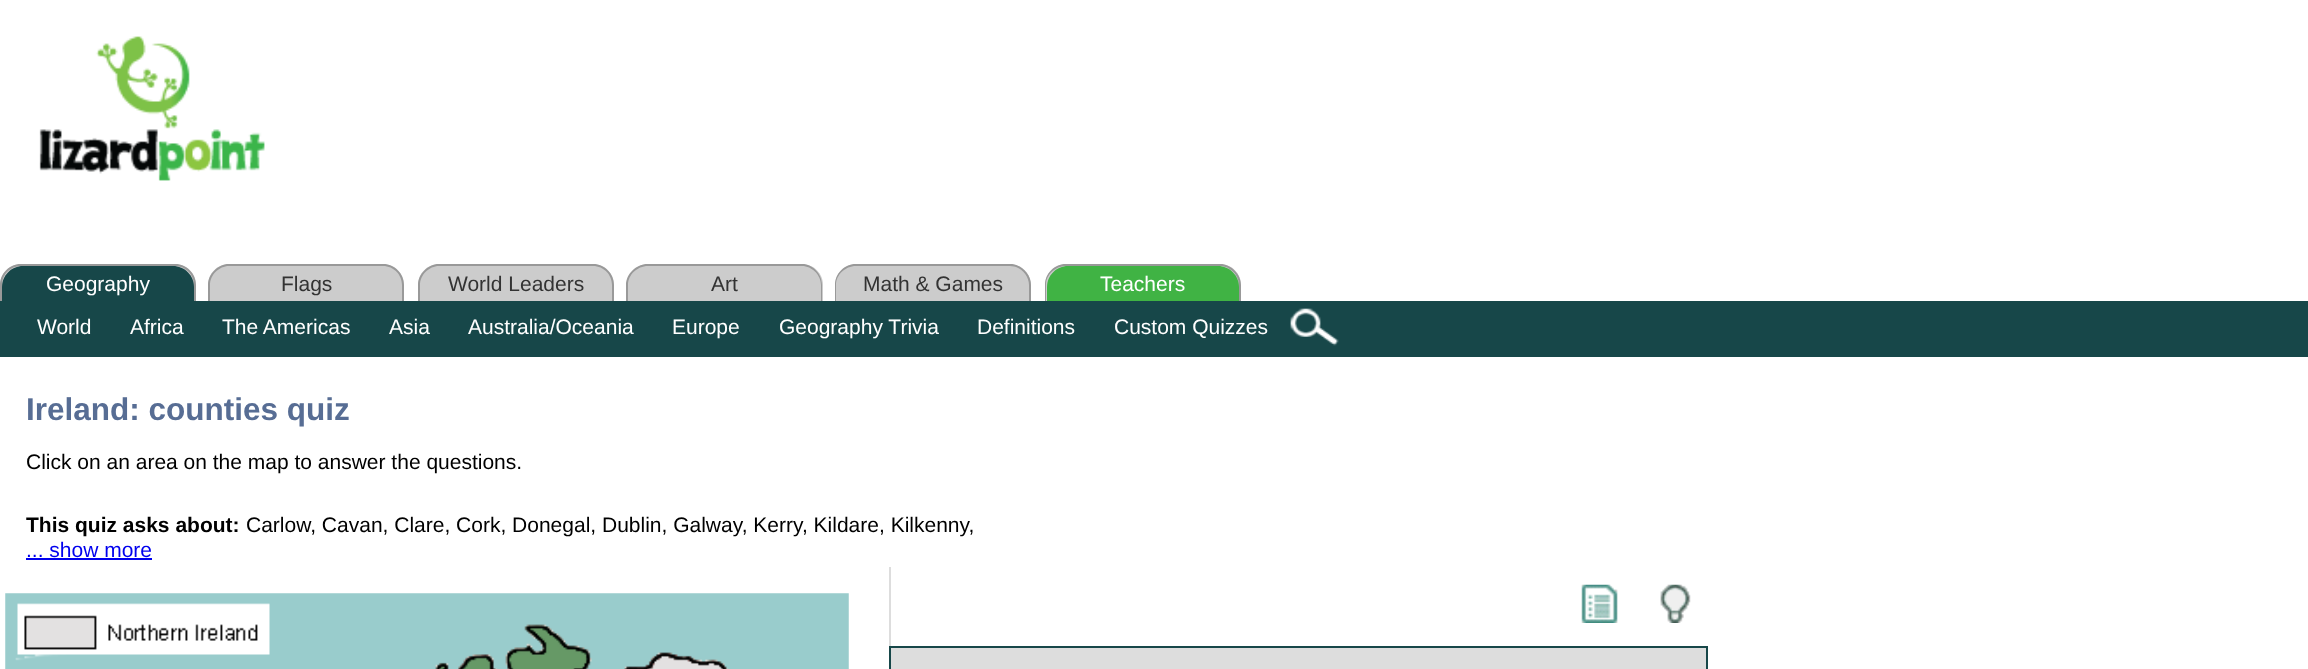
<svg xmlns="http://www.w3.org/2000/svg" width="2308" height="669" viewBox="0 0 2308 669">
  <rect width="100%" height="100%" fill="#fff"/>
  <image x="39" y="36" width="226" height="145" href="img/1.png"/>
  <path d="M21 264H175C186.5 264 196 273.5 196 285V301H0V285C0 273.5 9.5 264 21 264Z" fill="#ccc"/>
  <path d="M21 264H175C187 264 196 274 196 285V301H0V285C0 274 9 264 21 264ZM21 266H175C186 266 194 275 194 285V301H2V285C2 275 10 266 21 266Z" fill="#999" fill-rule="evenodd"/>
  <path d="M23 266H173C184.5 266 194 275.5 194 287V301H2V287C2 275.5 11.5 266 23 266Z" fill="#174749"/>
  <path d="M229 264H383C394.5 264 404 273.5 404 285V301H208V285C208 273.5 217.5 264 229 264Z" fill="#ccc"/>
  <path d="M229 264H383C395 264 404 274 404 285V301H208V285C208 274 218 264 229 264ZM229 266H383C394 266 402 275 402 285V301H210V285C210 275 219 266 229 266Z" fill="#999" fill-rule="evenodd"/>
  <path d="M439 264H593C604.5 264 614 273.5 614 285V301H418V285C418 273.5 427.5 264 439 264Z" fill="#ccc"/>
  <path d="M439 264H593C605 264 614 274 614 285V301H418V285C418 274 428 264 439 264ZM439 266H593C604 266 612 275 612 285V301H420V285C420 275 429 266 439 266Z" fill="#999" fill-rule="evenodd"/>
  <path d="M648 264H802C813.5 264 823 273.5 823 285V301H627V285C627 273.5 636.5 264 648 264Z" fill="#ccc"/>
  <path d="M648 264H802C813 264 822 274 822 285V301H626V285C626 274 636 264 648 264ZM648 266H802C812 266 821 275 821 285V301H628V285C628 275 637 266 648 266Z" fill="#999" fill-rule="evenodd"/>
  <path d="M856 264H1010C1021.5 264 1031 273.5 1031 285V301H835V285C835 273.5 844.5 264 856 264Z" fill="#ccc"/>
  <path d="M856 264H1010C1021 264 1031 274 1031 285V301H835V285C835 274 844 264 856 264ZM856 266H1010C1020 266 1029 275 1029 285V301H836V285C836 275 845 266 856 266Z" fill="#999" fill-rule="evenodd"/>
  <path d="M1066 264H1220C1231.5 264 1241 273.5 1241 285V301H1045V285C1045 273.5 1054.5 264 1066 264Z" fill="#ccc"/>
  <path d="M1066 264H1220C1231 264 1241 274 1241 285V301H1045V285C1045 274 1054 264 1066 264ZM1066 266H1220C1230 266 1239 275 1239 285V301H1046V285C1046 275 1055 266 1066 266Z" fill="#999" fill-rule="evenodd"/>
  <path d="M1068 266H1218C1229.5 266 1239 275.5 1239 287V301H1047V287C1047 275.5 1056.5 266 1068 266Z" fill="#40b344"/>
  <path d="M0 301h2308v56H0z" fill="#174749"/>
  <image x="1290" y="308" width="49" height="38" href="img/2.png"/>
  <path d="M26 558h126v2H26z" fill="#00e"/>
  <image x="5" y="593" width="844" height="76" href="img/3.png"/>
  <path d="M889 567h817v102H889z" fill="#ddd"/>
  <path d="M891 567h815v79H891z" fill="#fff"/>
  <image x="1581" y="584" width="37" height="39" href="img/4.png"/>
  <image x="1660" y="584" width="31" height="39" href="img/5.png"/>
  <path d="M889 646h819v2H889z" fill="#174749"/>
  <path d="M1706 646h2v23H1706z" fill="#174749"/>
  <path d="M889 646h2v23H889z" fill="#174749"/>
  <text x="46" y="291" font-family="Liberation Sans" font-size="21" fill="#fff">Geography</text>
  <g font-family="Liberation Sans" font-size="21" fill="#333">
    <text x="281" y="291">Flags</text>
    <text x="448" y="291">World Leaders</text>
    <text x="711" y="291">Art</text>
    <text x="863" y="291">Math &amp; Games</text>
  </g>
  <g font-family="Liberation Sans" font-size="21" fill="#fff">
    <text x="1100" y="291">Teachers</text>
    <text x="37" y="334">World</text>
    <text x="130" y="334">Africa</text>
    <text x="222" y="334">The Americas</text>
    <text x="389" y="334">Asia</text>
    <text x="468" y="334">Australia/Oceania</text>
    <text x="672" y="334">Europe</text>
    <text x="779" y="334">Geography Trivia</text>
    <text x="977" y="334">Definitions</text>
    <text x="1114" y="334">Custom Quizzes</text>
  </g>
  <text x="26" y="420" font-family="Liberation Sans" font-size="31.5" font-weight="bold" fill="#576d94">Ireland: counties quiz</text>
  <text x="26" y="469" font-family="Liberation Sans" font-size="21" fill="#000">Click on an area on the map to answer the questions.</text>
  <text x="26" y="532" font-family="Liberation Sans" font-size="21" font-weight="bold" fill="#000">This quiz asks about:</text>
  <text x="246" y="532" font-family="Liberation Sans" font-size="21" fill="#000">Carlow, Cavan, Clare, Cork, Donegal, Dublin, Galway, Kerry, Kildare, Kilkenny,</text>
  <text x="26" y="557" font-family="Liberation Sans" font-size="21" fill="#00e">... show more</text>
</svg>
